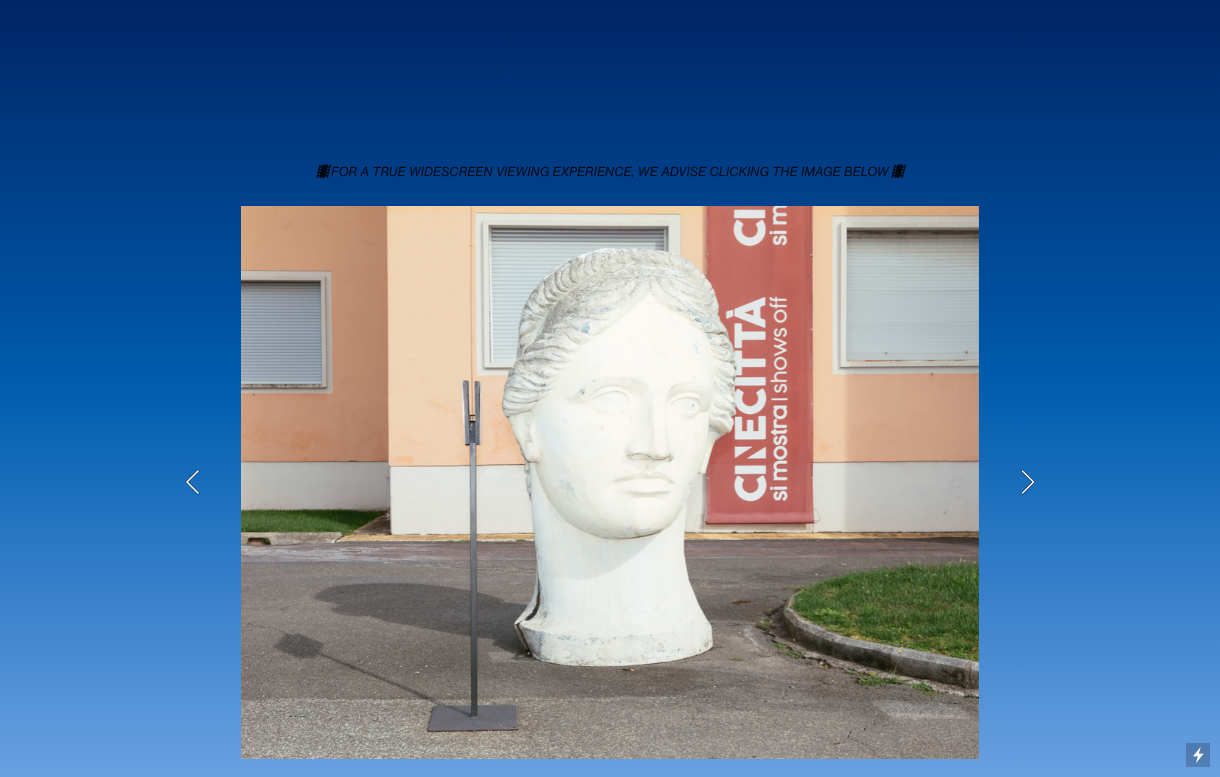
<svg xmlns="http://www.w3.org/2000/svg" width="1220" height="777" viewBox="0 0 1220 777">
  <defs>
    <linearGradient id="g1" gradientUnits="userSpaceOnUse" x1="610" y1="-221" x2="610" y2="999"><stop offset="0" stop-color="#00053c"/><stop offset="0.5" stop-color="#005daf"/><stop offset="1" stop-color="#a6c7ff"/></linearGradient>
    <linearGradient id="g2" gradientUnits="userSpaceOnUse" x1="610" y1="-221" x2="610" y2="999"><stop offset="0" stop-color="#000430"/><stop offset="0.5" stop-color="#004a8c"/><stop offset="1" stop-color="#859fcc"/></linearGradient>
  </defs>
  <rect width="100%" height="100%" fill="#fff"/>
  <path d="M0 0h1220v777H0z" fill="url(#g1)"/>
  <path d="M1186 743h24v24H1186z" fill="url(#g2)"/>
  <image x="316" y="164" width="15" height="14" href="img/1.png"/>
  <image x="891" y="164" width="15" height="14" href="img/1.png"/>
  <path d="M198 493L187 482L198 471" fill="none" stroke="#00000099" stroke-width="2.5" stroke-linecap="square"/>
  <path d="M198 493L187 482L198 471" fill="none" stroke="#fff" stroke-width="1.5" stroke-linecap="square"/>
  <image x="241" y="206" width="738" height="553" href="img/2.png"/>
  <path d="M1022.5 493L1033.5 482L1022.5 471" fill="none" stroke="#00000099" stroke-width="2.5" stroke-linecap="square"/>
  <path d="M1022.5 493L1033.5 482L1022.5 471" fill="none" stroke="#fff" stroke-width="1.5" stroke-linecap="square"/>
  <image x="1193" y="747" width="11" height="16" href="img/3.png"/>
  <text x="331" y="176" font-family="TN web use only" font-size="12.3" font-style="italic" letter-spacing="0.1" fill="#000914">FOR A TRUE WIDESCREEN VIEWING EXPERIENCE, WE ADVISE CLICKING THE IMAGE BELOW</text>
</svg>
